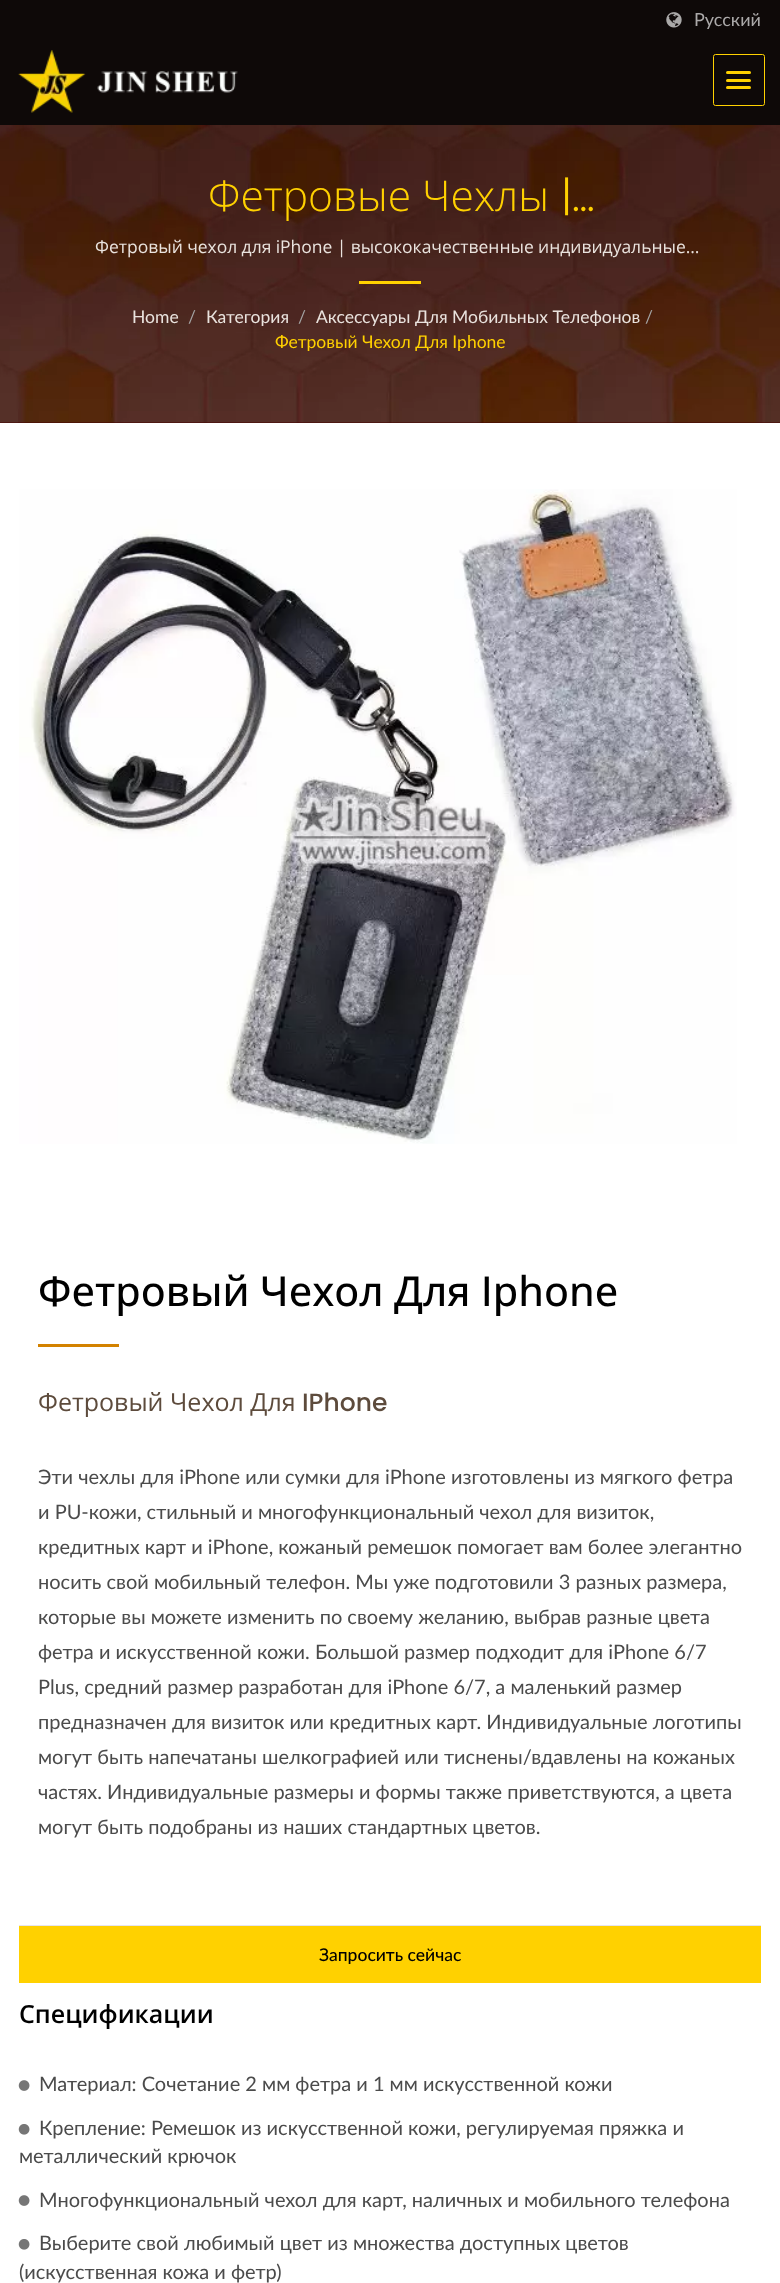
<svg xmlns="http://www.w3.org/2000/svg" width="780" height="2283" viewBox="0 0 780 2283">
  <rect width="100%" height="100%" fill="#fff"/>
  <path d="M0 0h780v125H0z" fill="#0e0908"/>
  <image x="666" y="12" width="16" height="16" href="img/1.png"/>
  <image x="18" y="50" width="220" height="63" href="img/2.png"/>
  <rect x="713.5" y="54.5" width="51" height="51" rx="2" fill="none" stroke="#ffd100"/>
  <rect x="726" y="71" width="25" height="3" rx="1.5" fill="#ffd100"/>
  <rect x="726" y="79" width="25" height="3" rx="1.5" fill="#ffd100"/>
  <rect x="726" y="86" width="25" height="3" rx="1.5" fill="#ffd100"/>
  <path d="M0 422h780v1H0z" fill="#460200"/>
  <image x="0" y="125" width="780" height="298" href="img/3.png"/>
  <path d="M359 281h62v3H359z" fill="#ffd100"/>
  <image x="19" y="489" width="718" height="655" href="img/4.png"/>
  <path d="M19 1925h742v1H19z" fill="#e6e5ef"/>
  <path d="M38 1344h81v3H38z" fill="#d38200"/>
  <path d="M19 1926h742v57H19z" fill="#ffd100"/>
  <image x="18" y="2080" width="12" height="11" href="img/5.png"/>
  <image x="18" y="2124" width="12" height="11" href="img/6.png"/>
  <image x="18" y="2195" width="12" height="11" href="img/5.png"/>
  <image x="18" y="2239" width="12" height="11" href="img/6.png"/>
  <text x="694" y="26" font-family="Lato" font-size="18" fill="#aba9a9">Русский</text>
  <text x="208" y="211" font-family="Open Sans" font-size="42.5" font-weight="300" fill="#ffd100">Фетровые Чехлы</text>
  <text x="561" y="211" font-family="Poppins" font-size="42.5" font-weight="300" fill="#ffd100">|…</text>
  <text x="95" y="253" word-spacing="-0.25" font-family="Open Sans" font-size="17.5" fill="#eae3de">Фетровый чехол для iPhone | высококачественные индивидуальные…</text>
  <text x="132" y="323" font-family="Lato" font-size="17.5" fill="#eae3de">Home</text>
  <text x="188" y="323" font-family="Lato" font-size="17.5" fill="#a4a4a4">/</text>
  <text x="206" y="323" font-family="Lato" font-size="17.5" fill="#eae3de">Категория</text>
  <text x="298" y="323" font-family="Lato" font-size="17.5" fill="#a4a4a4">/</text>
  <text x="316" y="323" font-family="Lato" font-size="17.5" fill="#eae3de">Аксессуары Для Мобильных Телефонов</text>
  <text x="645" y="323" font-family="Lato" font-size="17.5" fill="#a4a4a4">/</text>
  <text x="275" y="348" font-family="Lato" font-size="17.5" fill="#ffd100">Фетровый Чехол Для Iphone</text>
  <text x="38" y="1306" word-spacing="-0.5" font-family="Open Sans" font-size="41.25" font-weight="500" fill="#000">Фетровый Чехол Для Iphone</text>
  <text x="38" y="1411" font-family="Open Sans" font-size="25" fill="#5d4b3c">Фетровый Чехол Для</text>
  <text x="302" y="1411" font-family="Poppins" font-size="25" font-weight="500" fill="#5d4b3c">IPhone</text>
  <g font-family="Lato" font-size="20" fill="#4b4b4b">
    <text x="38" y="1484">Эти чехлы для iPhone или сумки для iPhone изготовлены из мягкого фетра</text>
    <text x="38" y="1519">и PU-кожи, стильный и многофункциональный чехол для визиток,</text>
    <text x="38" y="1554">кредитных карт и iPhone, кожаный ремешок помогает вам более элегантно</text>
    <text x="38" y="1589">носить свой мобильный телефон. Мы уже подготовили 3 разных размера,</text>
    <text x="38" y="1624">которые вы можете изменить по своему желанию, выбрав разные цвета</text>
    <text x="38" y="1659">фетра и искусственной кожи. Большой размер подходит для iPhone 6/7</text>
    <text x="38" y="1694">Plus, средний размер разработан для iPhone 6/7, а маленький размер</text>
    <text x="38" y="1729">предназначен для визиток или кредитных карт. Индивидуальные логотипы</text>
    <text x="38" y="1764">могут быть напечатаны шелкографией или тиснены/вдавлены на кожаных</text>
    <text x="38" y="1799">частях. Индивидуальные размеры и формы также приветствуются, а цвета</text>
    <text x="38" y="1834">могут быть подобраны из наших стандартных цветов.</text>
  </g>
  <text x="319" y="1961" font-family="Lato" font-size="17.5" font-weight="500" fill="#000">Запросить сейчас</text>
  <text x="19" y="2023" font-family="Open Sans" font-size="25" font-weight="600" fill="#000">Спецификации</text>
  <g font-family="Lato" font-size="20" fill="#4b4b4b">
    <text x="39" y="2091">Материал: Сочетание 2 мм фетра и 1 мм искусственной кожи</text>
    <text x="39" y="2135">Крепление: Ремешок из искусственной кожи, регулируемая пряжка и</text>
    <text x="19" y="2163">металлический крючок</text>
    <text x="39" y="2207">Многофункциональный чехол для карт, наличных и мобильного телефона</text>
    <text x="39" y="2250">Выберите свой любимый цвет из множества доступных цветов</text>
    <text x="19" y="2279">(искусственная кожа и фетр)</text>
  </g>
</svg>
